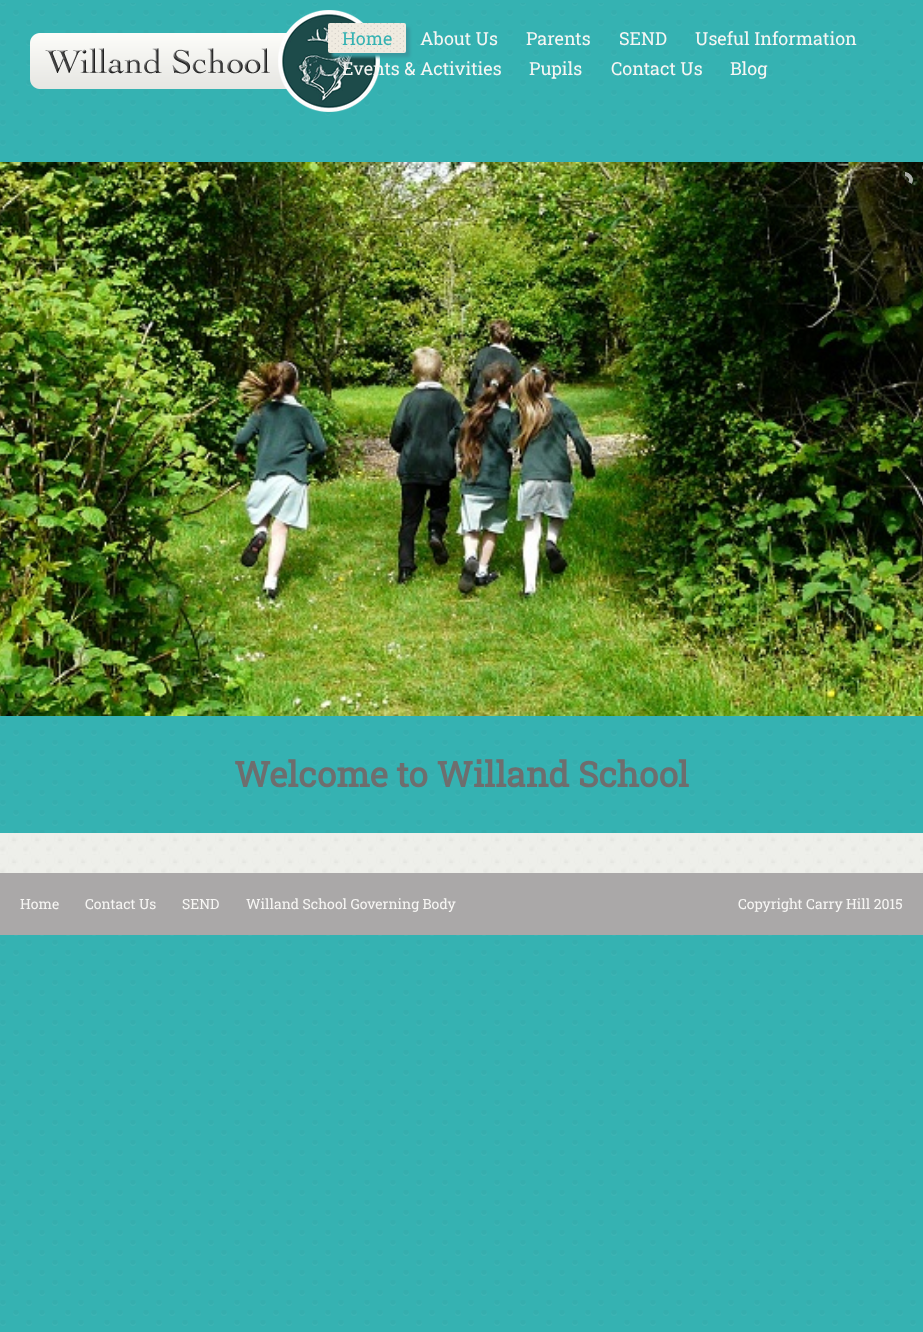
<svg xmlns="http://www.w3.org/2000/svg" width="923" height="1332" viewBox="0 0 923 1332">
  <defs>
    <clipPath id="clip1"><path d="M905 172h8v16H905z"/></clipPath>
    <clipPath id="clip2"><path d="M916 177.5L912 184L898 176L902.5 169Z"/></clipPath>
  </defs>
  <rect width="100%" height="100%" fill="#35b2b2"/>
  <image x="0" y="3" width="916" height="1323" href="img/1.png"/>
  <image x="30" y="10" width="350" height="102" href="img/2.png"/>
  <rect x="332" y="27" width="78" height="30" rx="2" fill="#389aa0" filter="blur(1.5px)"/>
  <rect x="328" y="23" width="78" height="30" rx="2" fill="#f0ebe0"/>
  <image x="328" y="23" width="76" height="29" href="img/3.png"/>
  <image x="0" y="162" width="923" height="554" href="img/4.png"/>
  <circle cx="905" cy="180" r="6" fill="none" stroke="#00000021" stroke-width="4"/>
  <g clip-path="url(#clip1)">
    <g clip-path="url(#clip2)">
      <path d="M910 183C906 190 896 183.5 900 177C904 170 914 176.5 910 183Z" fill="none" stroke="#ffffffa6" stroke-width="4"/>
    </g>
  </g>
  <image x="0" y="833" width="923" height="40" href="img/5.png"/>
  <path d="M0 873h923v62H0z" fill="#aaa8a8"/>
  <text x="342" y="45" font-family="Roboto Slab" font-size="18" fill="#35b2b2">Home</text>
  <g font-family="Roboto Slab" font-size="18" fill="#f7f6f4">
    <text x="420" y="45">About Us</text>
    <text x="526" y="45">Parents</text>
    <text x="619" y="45">SEND</text>
    <text x="695" y="45">Useful Information</text>
    <text x="342" y="75">Events &amp; Activities</text>
    <text x="529" y="75">Pupils</text>
    <text x="611" y="75">Contact Us</text>
    <text x="730" y="75">Blog</text>
  </g>
  <text x="234" y="787" font-family="Roboto Slab" font-size="35" font-weight="bold" fill="#6e6e6e">Welcome to Willand School</text>
  <g font-family="Roboto Slab" font-size="14" fill="#f7f6f4">
    <text x="20" y="909">Home</text>
    <text x="85" y="909">Contact Us</text>
    <text x="182" y="909">SEND</text>
    <text x="246" y="909">Willand School Governing Body</text>
    <text x="738" y="909">Copyright Carry Hill 2015</text>
  </g>
</svg>
